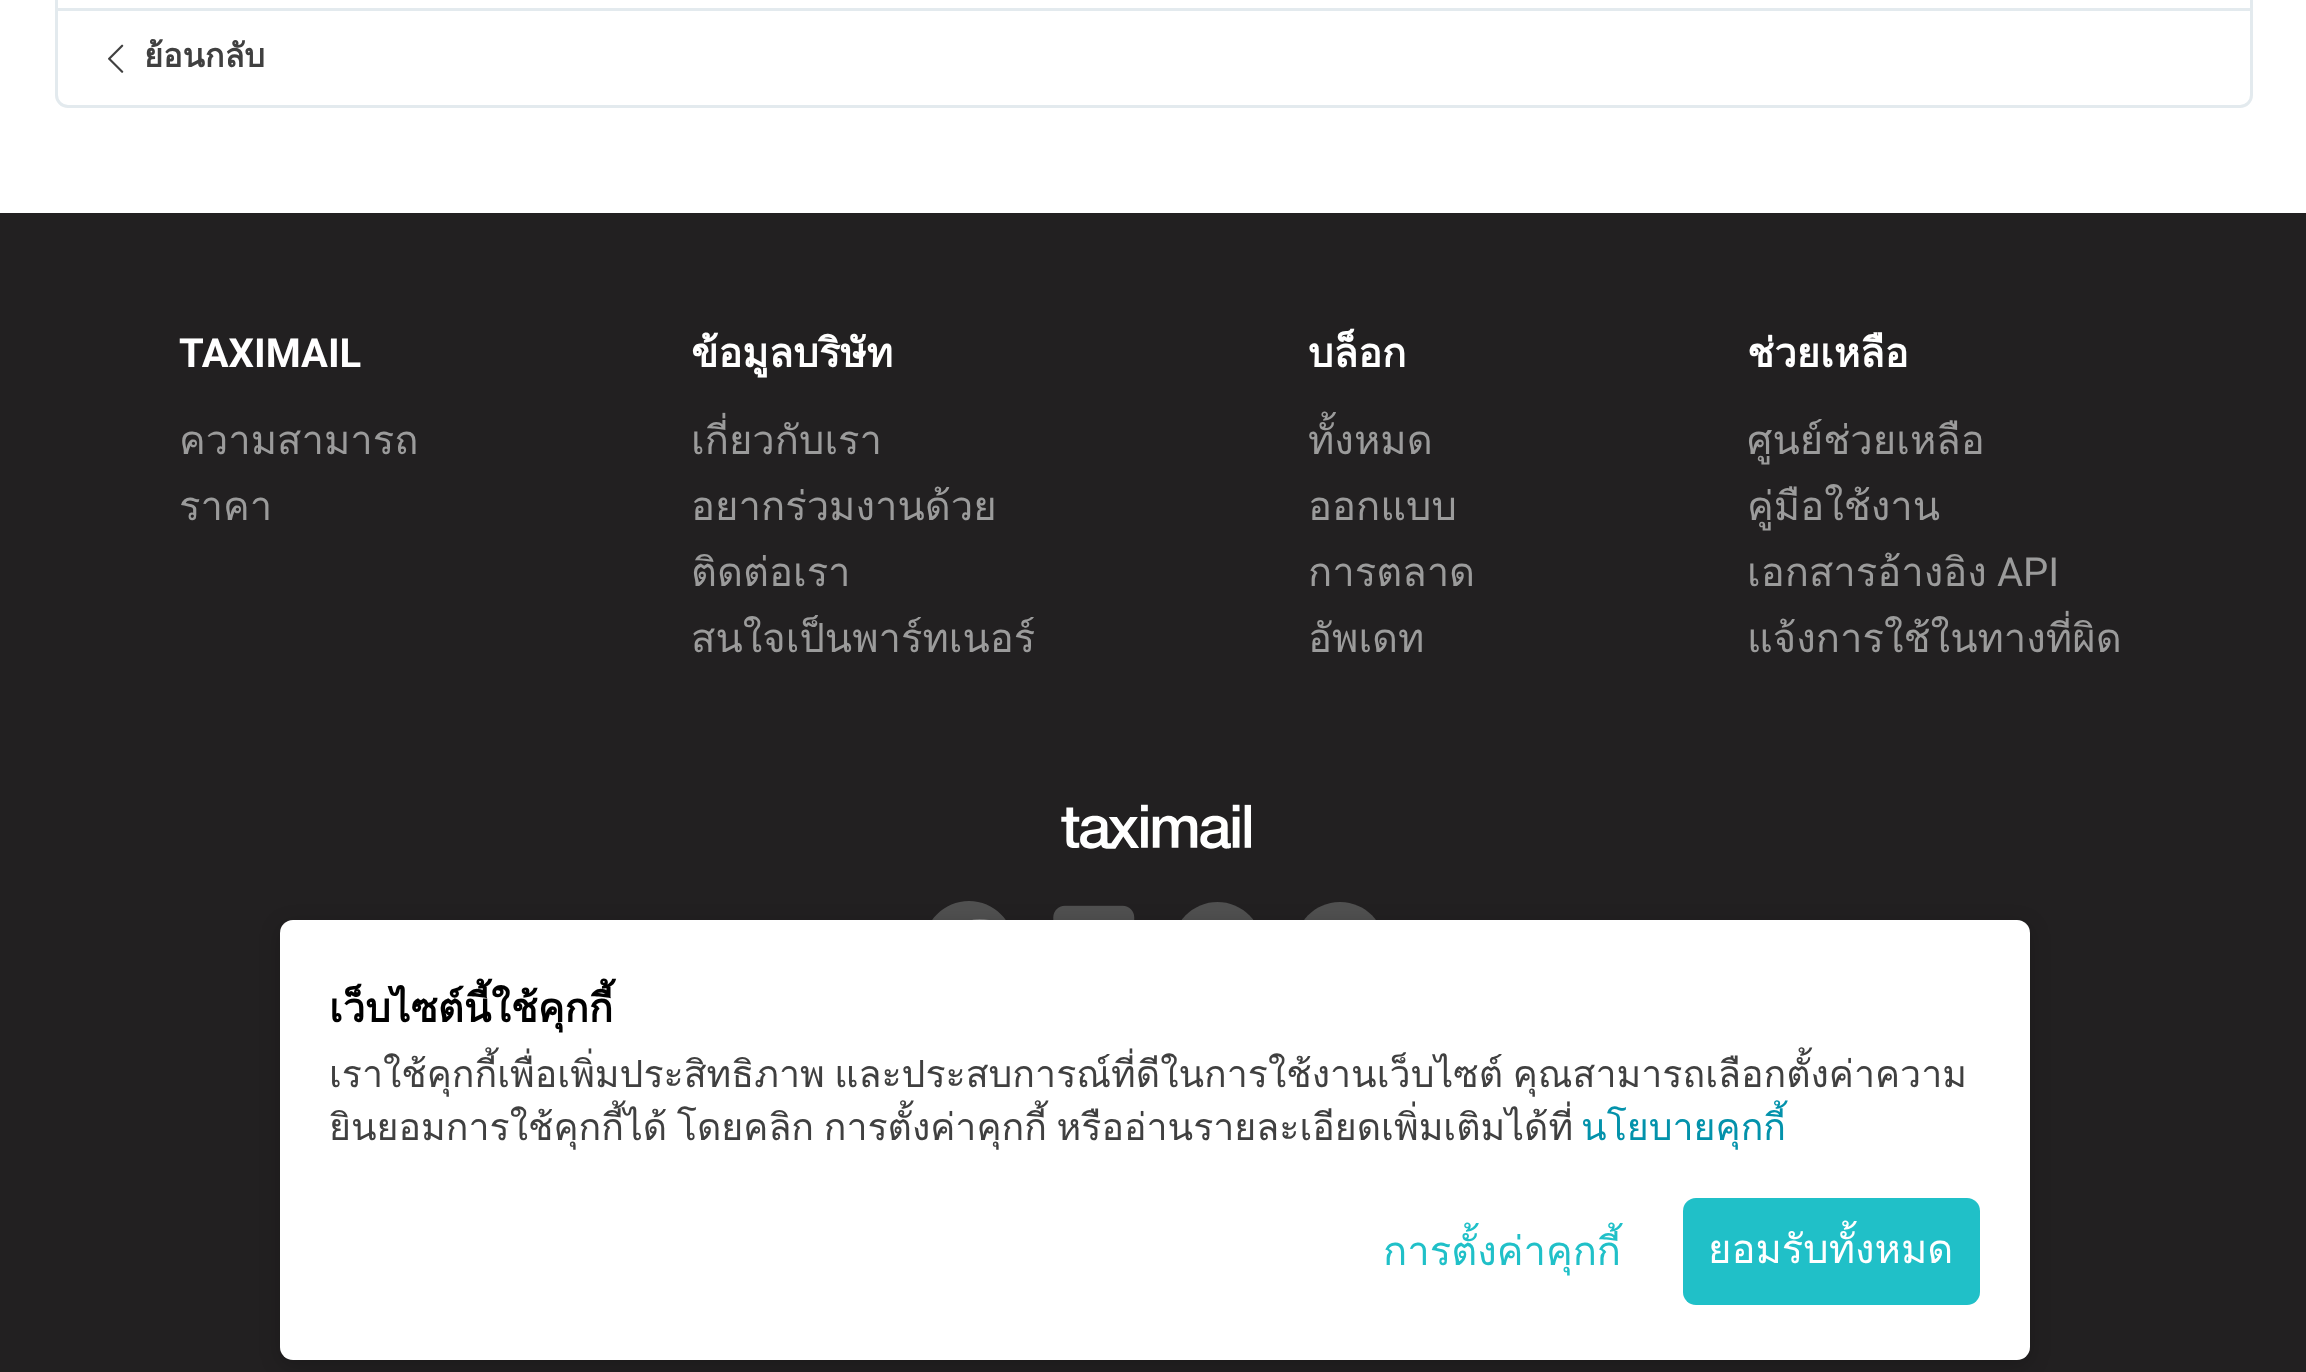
<svg xmlns="http://www.w3.org/2000/svg" width="2306" height="1372" viewBox="0 0 2306 1372">
  <rect width="100%" height="100%" fill="#222021"/>
  <path d="M0 0h2306v213H0z" fill="#fff"/>
  <rect x="56.5" y="-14.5" width="2195" height="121" rx="11.5" fill="none" stroke="#e3eaee" stroke-width="3"/>
  <path d="M58 8h2192v3H58z" fill="#e3eaee"/>
  <image x="108" y="44" width="16" height="29" href="img/1.png"/>
  <image x="1061" y="804" width="190" height="45" href="img/2.png"/>
  <ellipse cx="970" cy="952.5" rx="37.5" ry="40" fill="#818181"/>
  <path d="M1014 946C1014 921 994 901 969 901C944 901 924 921 924 946C924 969 940 987 962 991V959H950V946H962V932C964 918 978 918 989 920V931C974 931 976 933 976 946H988L986 959H976V991C997 987 1014 969 1014 946Z" fill="#505050"/>
  <image x="1053" y="905" width="82" height="15" href="img/3.png"/>
  <image x="1181" y="902" width="73" height="18" href="img/4.png"/>
  <image x="1304" y="902" width="72" height="18" href="img/5.png"/>
  <rect x="280" y="925" width="1750" height="440" rx="13" fill="#00000033" filter="blur(10px)"/>
  <rect x="280" y="920" width="1750" height="440" rx="13" fill="#fff"/>
  <rect x="1683" y="1198" width="297" height="107" rx="13" fill="#20c0c8"/>
  <text x="144" y="67" font-family="Loma" font-size="32.5" font-weight="bold" fill="#404040">ย้อนกลับ</text>
  <text x="179" y="367" font-family="Roboto" font-size="40" font-weight="bold" fill="#fff">TAXIMAIL</text>
  <g font-family="Loma" font-size="40" fill="#9b9b9b">
    <text x="179" y="454">ความสามารถ</text>
    <text x="179" y="520">ราคา</text>
  </g>
  <text x="691" y="367" font-family="Loma" font-size="40" font-weight="bold" fill="#fff">ข้อมูลบริษัท</text>
  <g font-family="Loma" font-size="40" fill="#9b9b9b">
    <text x="691" y="454">เกี่ยวกับเรา</text>
    <text x="691" y="520">อยากร่วมงานด้วย</text>
    <text x="691" y="586">ติดต่อเรา</text>
    <text x="691" y="652">สนใจเป็นพาร์ทเนอร์</text>
  </g>
  <text x="1308" y="367" font-family="Loma" font-size="40" font-weight="bold" fill="#fff">บล็อก</text>
  <g font-family="Loma" font-size="40" fill="#9b9b9b">
    <text x="1308" y="454">ทั้งหมด</text>
    <text x="1308" y="520">ออกแบบ</text>
    <text x="1308" y="586">การตลาด</text>
    <text x="1308" y="652">อัพเดท</text>
  </g>
  <text x="1747" y="367" font-family="Loma" font-size="40" font-weight="bold" fill="#fff">ช่วยเหลือ</text>
  <g font-family="Loma" font-size="40" fill="#9b9b9b">
    <text x="1747" y="454">ศูนย์ช่วยเหลือ</text>
    <text x="1747" y="520">คู่มือใช้งาน</text>
    <text x="1747" y="586">เอกสารอ้างอิง</text>
  </g>
  <text x="1997" y="586" font-family="Roboto" font-size="40" fill="#9b9b9b">API</text>
  <text x="1747" y="652" font-family="Loma" font-size="40" fill="#9b9b9b">แจ้งการใช้ในทางที่ผิด</text>
  <text x="329" y="1022" font-family="Loma" font-size="40" font-weight="bold" fill="#000">เว็บไซต์นี้ใช้คุกกี้</text>
  <g font-family="Loma" font-size="37.5" fill="#404040">
    <text x="329" y="1087" word-spacing="-3">เราใช้คุกกี้เพื่อเพิ่มประสิทธิภาพ และประสบการณ์ที่ดีในการใช้งานเว็บไซต์ คุณสามารถเลือกตั้งค่าความ</text>
    <text x="329" y="1140" word-spacing="-3">ยินยอมการใช้คุกกี้ได้ โดยคลิก การตั้งค่าคุกกี้ หรืออ่านรายละเอียดเพิ่มเติมได้ที่</text>
  </g>
  <text x="1581" y="1140" font-family="Loma" font-size="37.5" fill="#0392ab">นโยบายคุกกี้</text>
  <text x="1383" y="1265" font-family="Loma" font-size="40" fill="#20c0c8">การตั้งค่าคุกกี้</text>
  <text x="1708" y="1263" font-family="Loma" font-size="40" fill="#fff">ยอมรับทั้งหมด</text>
</svg>
